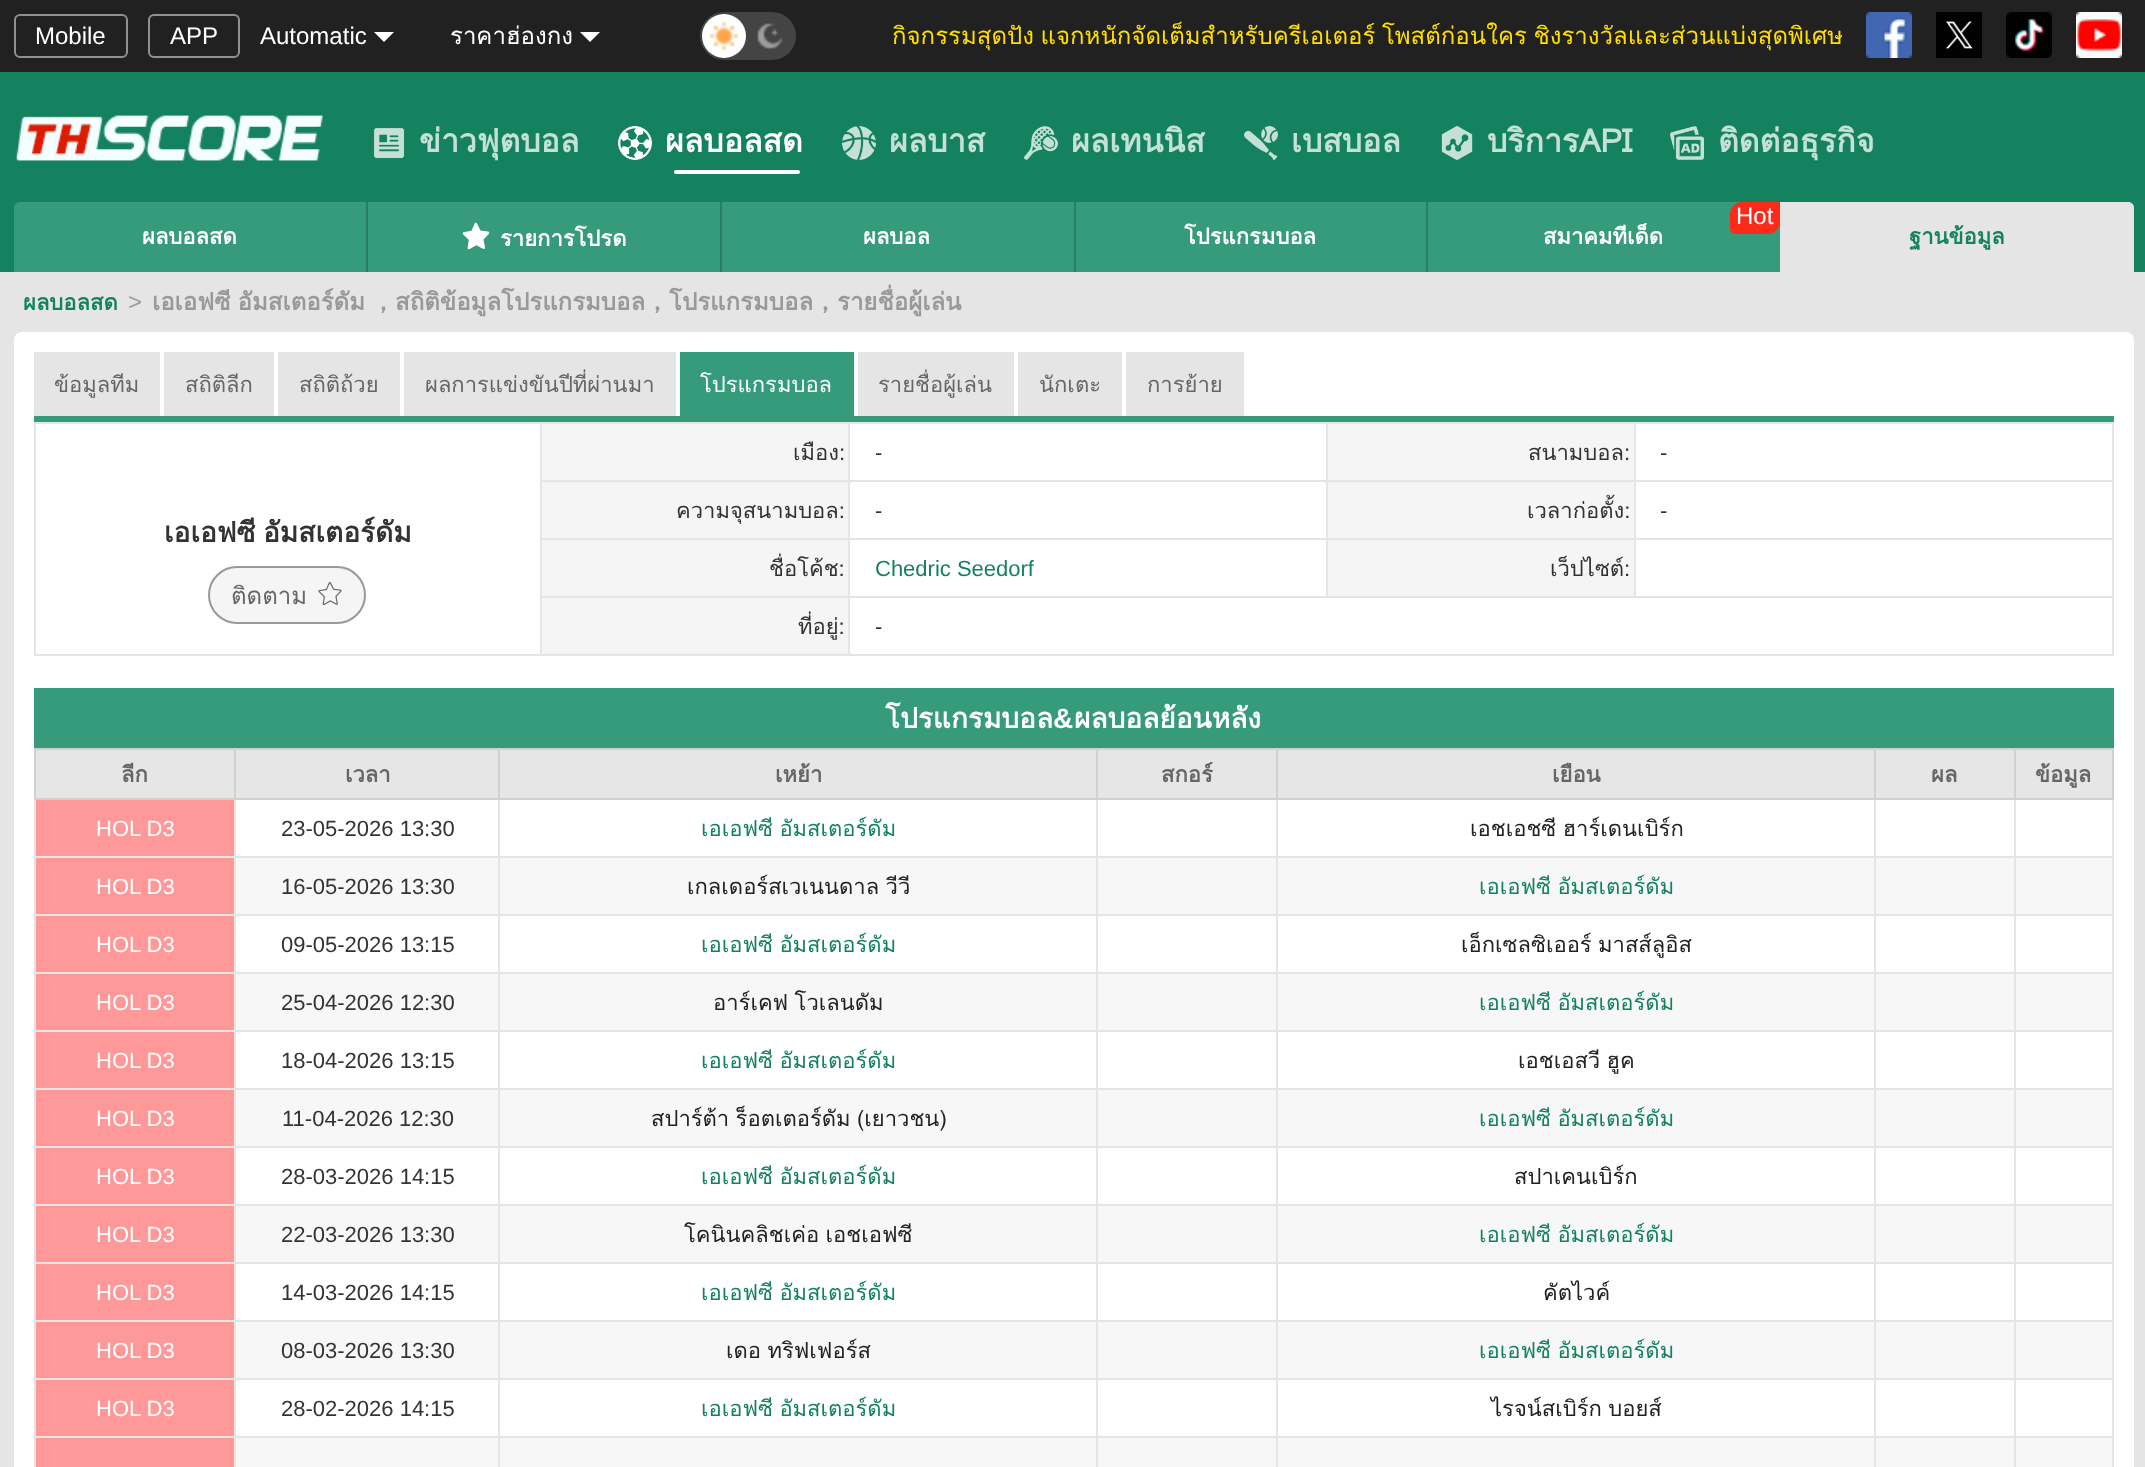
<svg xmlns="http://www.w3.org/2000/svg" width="2145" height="1467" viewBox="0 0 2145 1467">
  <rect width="100%" height="100%" fill="#e5e5e5"/>
  <path d="M0 72h2145v200H0z" fill="#15825f"/>
  <path d="M0 0h2145v72H0z" fill="#212121"/>
  <rect x="15" y="15" width="112" height="42" rx="5" fill="none" stroke="#909090" stroke-width="2"/>
  <rect x="149" y="15" width="90" height="42" rx="5" fill="none" stroke="#909090" stroke-width="2"/>
  <path d="M374 32H394L384 42Z" fill="#fff"/>
  <path d="M580 32H600L590 42Z" fill="#fff"/>
  <rect x="700" y="12" width="96" height="48" rx="24" fill="#444"/>
  <image x="757" y="22" width="26" height="28" href="img/1.png"/>
  <circle cx="724" cy="36" r="22" fill="#fff"/>
  <image x="709" y="21" width="30" height="30" href="img/2.png"/>
  <image x="1866" y="12" width="46" height="46" href="img/3.png"/>
  <image x="1936" y="12" width="46" height="46" href="img/4.png"/>
  <image x="2006" y="12" width="46" height="46" href="img/5.png"/>
  <image x="2076" y="12" width="46" height="46" href="img/6.png"/>
  <image x="16" y="115" width="308" height="46" href="img/7.png"/>
  <image x="373" y="128" width="32" height="31" href="img/8.png"/>
  <image x="618" y="126" width="34" height="34" href="img/9.png"/>
  <rect x="674" y="170" width="126" height="4" rx="2" fill="#fff"/>
  <image x="842" y="126" width="34" height="34" href="img/10.png"/>
  <image x="1024" y="126" width="34" height="34" href="img/11.png"/>
  <image x="1244" y="126" width="34" height="34" href="img/12.png"/>
  <image x="1441" y="126" width="32" height="34" href="img/13.png"/>
  <image x="1670" y="126" width="34" height="34" href="img/14.png"/>
  <path d="M20 202H2128C2131.5 202 2134 204.5 2134 208V272H14V208C14 204.5 16.5 202 20 202Z" fill="#359b7a"/>
  <path d="M366 202h2v70H366z" fill="#2a7c62"/>
  <path d="M720 202h2v70H720z" fill="#2a7c62"/>
  <image x="462" y="222" width="28" height="28" href="img/15.png"/>
  <path d="M1074 202h2v70H1074z" fill="#2a7c62"/>
  <path d="M1426 202h2v70H1426z" fill="#2a7c62"/>
  <path d="M1742 202H1780V222C1780 228.5 1774.5 234 1768 234H1736C1732.5 234 1730 231.5 1730 228V214C1730 207.5 1735.5 202 1742 202Z" fill="#fb2b1c"/>
  <path d="M1780 202H2128C2131.5 202 2134 204.5 2134 208V272H1780Z" fill="#e5e5e5"/>
  <rect x="14" y="332" width="2120" height="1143" rx="8" fill="#fff"/>
  <path d="M34 416h2080v6H34z" fill="#359b7a"/>
  <path d="M34 352h126v64H34z" fill="#e5e5e5"/>
  <path d="M164 352h110v64H164z" fill="#e5e5e5"/>
  <path d="M278 352h122v64H278z" fill="#e5e5e5"/>
  <path d="M404 352h272v64H404z" fill="#e5e5e5"/>
  <path d="M680 352h174v64H680z" fill="#359b7a"/>
  <path d="M858 352h156v64H858z" fill="#e5e5e5"/>
  <path d="M1018 352h104v64H1018z" fill="#e5e5e5"/>
  <path d="M1126 352h118v64H1126z" fill="#e5e5e5"/>
  <path d="M542 424h306v56H542z" fill="#f5f5f5"/>
  <path d="M1634 422h480v2H1634z" fill="#e5e5e5"/>
  <path d="M1634 480h480v2H1634z" fill="#e5e5e5"/>
  <path d="M1634 538h480v2H1634z" fill="#e5e5e5"/>
  <path d="M848 596h1266v2H848z" fill="#e5e5e5"/>
  <path d="M1634 538h2v60H1634z" fill="#e5e5e5"/>
  <path d="M1326 538h310v2H1326z" fill="#e5e5e5"/>
  <path d="M1634 480h2v60H1634z" fill="#e5e5e5"/>
  <path d="M1326 480h310v2H1326z" fill="#e5e5e5"/>
  <path d="M1634 422h2v60H1634z" fill="#e5e5e5"/>
  <path d="M1326 422h310v2H1326z" fill="#e5e5e5"/>
  <path d="M1326 538h2v60H1326z" fill="#e5e5e5"/>
  <path d="M848 538h480v2H848z" fill="#e5e5e5"/>
  <path d="M1326 480h2v60H1326z" fill="#e5e5e5"/>
  <path d="M848 480h480v2H848z" fill="#e5e5e5"/>
  <path d="M1326 422h2v60H1326z" fill="#e5e5e5"/>
  <path d="M848 422h480v2H848z" fill="#e5e5e5"/>
  <path d="M2112 596h2v60H2112z" fill="#e5e5e5"/>
  <path d="M848 654h1266v2H848z" fill="#e5e5e5"/>
  <path d="M848 596h2v60H848z" fill="#e5e5e5"/>
  <path d="M540 596h310v2H540z" fill="#e5e5e5"/>
  <path d="M848 538h2v60H848z" fill="#e5e5e5"/>
  <path d="M540 538h310v2H540z" fill="#e5e5e5"/>
  <path d="M848 480h2v60H848z" fill="#e5e5e5"/>
  <path d="M540 480h310v2H540z" fill="#e5e5e5"/>
  <path d="M848 422h2v60H848z" fill="#e5e5e5"/>
  <path d="M540 422h310v2H540z" fill="#e5e5e5"/>
  <path d="M540 654h310v2H540z" fill="#e5e5e5"/>
  <path d="M540 596h2v60H540z" fill="#e5e5e5"/>
  <path d="M540 538h2v60H540z" fill="#e5e5e5"/>
  <path d="M540 480h2v60H540z" fill="#e5e5e5"/>
  <path d="M540 422h2v60H540z" fill="#e5e5e5"/>
  <path d="M1328 424h306v56H1328z" fill="#f5f5f5"/>
  <path d="M2112 538h2v60H2112z" fill="#e5e5e5"/>
  <path d="M2112 480h2v60H2112z" fill="#e5e5e5"/>
  <path d="M2112 422h2v60H2112z" fill="#e5e5e5"/>
  <path d="M542 482h306v56H542z" fill="#f5f5f5"/>
  <path d="M1328 482h306v56H1328z" fill="#f5f5f5"/>
  <path d="M34 422h508v2H34z" fill="#e5e5e5"/>
  <path d="M34 654h508v2H34z" fill="#e5e5e5"/>
  <path d="M34 422h2v234H34z" fill="#e5e5e5"/>
  <rect x="209" y="567" width="156" height="56" rx="28" fill="#f5f5f5" stroke="#999" stroke-width="2"/>
  <image x="318" y="581" width="24" height="25" href="img/16.png"/>
  <path d="M542 540h306v56H542z" fill="#f5f5f5"/>
  <path d="M1328 540h306v56H1328z" fill="#f5f5f5"/>
  <path d="M542 598h306v56H542z" fill="#f5f5f5"/>
  <path d="M34 688h2080v60H34z" fill="#359b7a"/>
  <path d="M36 750h198v48H36z" fill="#e6e6e6"/>
  <path d="M2014 748h100v2H2014z" fill="#d0d0d0"/>
  <path d="M2014 856h100v2H2014z" fill="#e5e5e5"/>
  <path d="M2014 914h100v2H2014z" fill="#e5e5e5"/>
  <path d="M2014 972h100v2H2014z" fill="#e5e5e5"/>
  <path d="M2014 1030h100v2H2014z" fill="#e5e5e5"/>
  <path d="M2014 1088h100v2H2014z" fill="#e5e5e5"/>
  <path d="M2014 1146h100v2H2014z" fill="#e5e5e5"/>
  <path d="M2014 1204h100v2H2014z" fill="#e5e5e5"/>
  <path d="M2014 1262h100v2H2014z" fill="#e5e5e5"/>
  <path d="M2014 1320h100v2H2014z" fill="#e5e5e5"/>
  <path d="M2014 1378h100v2H2014z" fill="#e5e5e5"/>
  <path d="M2014 1436h100v2H2014z" fill="#e5e5e5"/>
  <path d="M2112 1436h2v31H2112z" fill="#e5e5e5"/>
  <path d="M2112 1378h2v60H2112z" fill="#e5e5e5"/>
  <path d="M2112 1320h2v60H2112z" fill="#e5e5e5"/>
  <path d="M2112 1262h2v60H2112z" fill="#e5e5e5"/>
  <path d="M2112 1204h2v60H2112z" fill="#e5e5e5"/>
  <path d="M2112 1146h2v60H2112z" fill="#e5e5e5"/>
  <path d="M2112 1088h2v60H2112z" fill="#e5e5e5"/>
  <path d="M2112 1030h2v60H2112z" fill="#e5e5e5"/>
  <path d="M2112 972h2v60H2112z" fill="#e5e5e5"/>
  <path d="M2112 914h2v60H2112z" fill="#e5e5e5"/>
  <path d="M2112 798h2v118H2112z" fill="#e5e5e5"/>
  <path d="M2112 748h2v52H2112z" fill="#d0d0d0"/>
  <path d="M236 858h1876v56H236z" fill="#f7f7f7"/>
  <path d="M236 974h1876v56H236z" fill="#f7f7f7"/>
  <path d="M236 1090h1876v56H236z" fill="#f7f7f7"/>
  <path d="M236 1206h1876v56H236z" fill="#f7f7f7"/>
  <path d="M236 1322h1876v56H236z" fill="#f7f7f7"/>
  <path d="M236 1438h1876v29H236z" fill="#f7f7f7"/>
  <path d="M2014 1436h2v31H2014z" fill="#e5e5e5"/>
  <path d="M1874 1436h142v2H1874z" fill="#e5e5e5"/>
  <path d="M2014 1378h2v60H2014z" fill="#e5e5e5"/>
  <path d="M1874 1378h142v2H1874z" fill="#e5e5e5"/>
  <path d="M2014 1320h2v60H2014z" fill="#e5e5e5"/>
  <path d="M1874 1320h142v2H1874z" fill="#e5e5e5"/>
  <path d="M2014 1262h2v60H2014z" fill="#e5e5e5"/>
  <path d="M1874 1262h142v2H1874z" fill="#e5e5e5"/>
  <path d="M2014 1204h2v60H2014z" fill="#e5e5e5"/>
  <path d="M1874 1204h142v2H1874z" fill="#e5e5e5"/>
  <path d="M2014 1146h2v60H2014z" fill="#e5e5e5"/>
  <path d="M1874 1146h142v2H1874z" fill="#e5e5e5"/>
  <path d="M2014 1088h2v60H2014z" fill="#e5e5e5"/>
  <path d="M1874 1088h142v2H1874z" fill="#e5e5e5"/>
  <path d="M2014 1030h2v60H2014z" fill="#e5e5e5"/>
  <path d="M1874 1030h142v2H1874z" fill="#e5e5e5"/>
  <path d="M2014 972h2v60H2014z" fill="#e5e5e5"/>
  <path d="M1874 972h142v2H1874z" fill="#e5e5e5"/>
  <path d="M2014 914h2v60H2014z" fill="#e5e5e5"/>
  <path d="M1874 914h142v2H1874z" fill="#e5e5e5"/>
  <path d="M2014 856h2v60H2014z" fill="#e5e5e5"/>
  <path d="M1874 856h142v2H1874z" fill="#e5e5e5"/>
  <path d="M2014 798h2v60H2014z" fill="#e5e5e5"/>
  <path d="M2014 798h100v2H2014z" fill="#d0d0d0"/>
  <path d="M2014 748h2v52H2014z" fill="#d0d0d0"/>
  <path d="M1874 748h142v2H1874z" fill="#d0d0d0"/>
  <path d="M1874 1436h2v31H1874z" fill="#e5e5e5"/>
  <path d="M1276 1436h600v2H1276z" fill="#e5e5e5"/>
  <path d="M1874 1378h2v60H1874z" fill="#e5e5e5"/>
  <path d="M1276 1378h600v2H1276z" fill="#e5e5e5"/>
  <path d="M1874 1320h2v60H1874z" fill="#e5e5e5"/>
  <path d="M1276 1320h600v2H1276z" fill="#e5e5e5"/>
  <path d="M1874 1262h2v60H1874z" fill="#e5e5e5"/>
  <path d="M1276 1262h600v2H1276z" fill="#e5e5e5"/>
  <path d="M1874 1204h2v60H1874z" fill="#e5e5e5"/>
  <path d="M1276 1204h600v2H1276z" fill="#e5e5e5"/>
  <path d="M1874 1146h2v60H1874z" fill="#e5e5e5"/>
  <path d="M1276 1146h600v2H1276z" fill="#e5e5e5"/>
  <path d="M1874 1088h2v60H1874z" fill="#e5e5e5"/>
  <path d="M1276 1088h600v2H1276z" fill="#e5e5e5"/>
  <path d="M1874 1030h2v60H1874z" fill="#e5e5e5"/>
  <path d="M1276 1030h600v2H1276z" fill="#e5e5e5"/>
  <path d="M1874 972h2v60H1874z" fill="#e5e5e5"/>
  <path d="M1276 972h600v2H1276z" fill="#e5e5e5"/>
  <path d="M1874 914h2v60H1874z" fill="#e5e5e5"/>
  <path d="M1276 914h600v2H1276z" fill="#e5e5e5"/>
  <path d="M1874 856h2v60H1874z" fill="#e5e5e5"/>
  <path d="M1276 856h600v2H1276z" fill="#e5e5e5"/>
  <path d="M1874 798h2v60H1874z" fill="#e5e5e5"/>
  <path d="M1874 798h142v2H1874z" fill="#d0d0d0"/>
  <path d="M1874 748h2v52H1874z" fill="#d0d0d0"/>
  <path d="M1276 748h600v2H1276z" fill="#d0d0d0"/>
  <path d="M1276 1436h2v31H1276z" fill="#e5e5e5"/>
  <path d="M1096 1436h182v2H1096z" fill="#e5e5e5"/>
  <path d="M1276 1378h2v60H1276z" fill="#e5e5e5"/>
  <path d="M1096 1378h182v2H1096z" fill="#e5e5e5"/>
  <path d="M1276 1320h2v60H1276z" fill="#e5e5e5"/>
  <path d="M1096 1320h182v2H1096z" fill="#e5e5e5"/>
  <path d="M1276 1262h2v60H1276z" fill="#e5e5e5"/>
  <path d="M1096 1262h182v2H1096z" fill="#e5e5e5"/>
  <path d="M1276 1204h2v60H1276z" fill="#e5e5e5"/>
  <path d="M1096 1204h182v2H1096z" fill="#e5e5e5"/>
  <path d="M1276 1146h2v60H1276z" fill="#e5e5e5"/>
  <path d="M1096 1146h182v2H1096z" fill="#e5e5e5"/>
  <path d="M1276 1088h2v60H1276z" fill="#e5e5e5"/>
  <path d="M1096 1088h182v2H1096z" fill="#e5e5e5"/>
  <path d="M1276 1030h2v60H1276z" fill="#e5e5e5"/>
  <path d="M1096 1030h182v2H1096z" fill="#e5e5e5"/>
  <path d="M1276 972h2v60H1276z" fill="#e5e5e5"/>
  <path d="M1096 972h182v2H1096z" fill="#e5e5e5"/>
  <path d="M1276 914h2v60H1276z" fill="#e5e5e5"/>
  <path d="M1096 914h182v2H1096z" fill="#e5e5e5"/>
  <path d="M1276 856h2v60H1276z" fill="#e5e5e5"/>
  <path d="M1096 856h182v2H1096z" fill="#e5e5e5"/>
  <path d="M1276 798h2v60H1276z" fill="#e5e5e5"/>
  <path d="M1276 798h600v2H1276z" fill="#d0d0d0"/>
  <path d="M1276 748h2v52H1276z" fill="#d0d0d0"/>
  <path d="M1096 748h182v2H1096z" fill="#d0d0d0"/>
  <path d="M1096 1436h2v31H1096z" fill="#e5e5e5"/>
  <path d="M498 1436h600v2H498z" fill="#e5e5e5"/>
  <path d="M1096 1378h2v60H1096z" fill="#e5e5e5"/>
  <path d="M498 1378h600v2H498z" fill="#e5e5e5"/>
  <path d="M1096 1320h2v60H1096z" fill="#e5e5e5"/>
  <path d="M498 1320h600v2H498z" fill="#e5e5e5"/>
  <path d="M1096 1262h2v60H1096z" fill="#e5e5e5"/>
  <path d="M498 1262h600v2H498z" fill="#e5e5e5"/>
  <path d="M1096 1204h2v60H1096z" fill="#e5e5e5"/>
  <path d="M498 1204h600v2H498z" fill="#e5e5e5"/>
  <path d="M1096 1146h2v60H1096z" fill="#e5e5e5"/>
  <path d="M498 1146h600v2H498z" fill="#e5e5e5"/>
  <path d="M1096 1088h2v60H1096z" fill="#e5e5e5"/>
  <path d="M498 1088h600v2H498z" fill="#e5e5e5"/>
  <path d="M1096 1030h2v60H1096z" fill="#e5e5e5"/>
  <path d="M498 1030h600v2H498z" fill="#e5e5e5"/>
  <path d="M1096 972h2v60H1096z" fill="#e5e5e5"/>
  <path d="M498 972h600v2H498z" fill="#e5e5e5"/>
  <path d="M1096 914h2v60H1096z" fill="#e5e5e5"/>
  <path d="M498 914h600v2H498z" fill="#e5e5e5"/>
  <path d="M1096 856h2v60H1096z" fill="#e5e5e5"/>
  <path d="M498 856h600v2H498z" fill="#e5e5e5"/>
  <path d="M1096 798h2v60H1096z" fill="#e5e5e5"/>
  <path d="M1096 798h182v2H1096z" fill="#d0d0d0"/>
  <path d="M1096 748h2v52H1096z" fill="#d0d0d0"/>
  <path d="M498 748h600v2H498z" fill="#d0d0d0"/>
  <path d="M498 1436h2v31H498z" fill="#e5e5e5"/>
  <path d="M234 1436h266v2H234z" fill="#e5e5e5"/>
  <path d="M498 1378h2v60H498z" fill="#e5e5e5"/>
  <path d="M234 1378h266v2H234z" fill="#e5e5e5"/>
  <path d="M498 1320h2v60H498z" fill="#e5e5e5"/>
  <path d="M234 1320h266v2H234z" fill="#e5e5e5"/>
  <path d="M498 1262h2v60H498z" fill="#e5e5e5"/>
  <path d="M234 1262h266v2H234z" fill="#e5e5e5"/>
  <path d="M498 1204h2v60H498z" fill="#e5e5e5"/>
  <path d="M234 1204h266v2H234z" fill="#e5e5e5"/>
  <path d="M498 1146h2v60H498z" fill="#e5e5e5"/>
  <path d="M234 1146h266v2H234z" fill="#e5e5e5"/>
  <path d="M498 1088h2v60H498z" fill="#e5e5e5"/>
  <path d="M234 1088h266v2H234z" fill="#e5e5e5"/>
  <path d="M498 1030h2v60H498z" fill="#e5e5e5"/>
  <path d="M234 1030h266v2H234z" fill="#e5e5e5"/>
  <path d="M498 972h2v60H498z" fill="#e5e5e5"/>
  <path d="M234 972h266v2H234z" fill="#e5e5e5"/>
  <path d="M498 914h2v60H498z" fill="#e5e5e5"/>
  <path d="M234 914h266v2H234z" fill="#e5e5e5"/>
  <path d="M498 856h2v60H498z" fill="#e5e5e5"/>
  <path d="M234 856h266v2H234z" fill="#e5e5e5"/>
  <path d="M498 798h2v60H498z" fill="#e5e5e5"/>
  <path d="M498 798h600v2H498z" fill="#d0d0d0"/>
  <path d="M498 748h2v52H498z" fill="#d0d0d0"/>
  <path d="M234 748h266v2H234z" fill="#d0d0d0"/>
  <path d="M234 1436h2v31H234z" fill="#e5e5e5"/>
  <path d="M34 1436h202v2H34z" fill="#e5e5e5"/>
  <path d="M234 1378h2v60H234z" fill="#e5e5e5"/>
  <path d="M34 1378h202v2H34z" fill="#e5e5e5"/>
  <path d="M234 1320h2v60H234z" fill="#e5e5e5"/>
  <path d="M34 1320h202v2H34z" fill="#e5e5e5"/>
  <path d="M234 1262h2v60H234z" fill="#e5e5e5"/>
  <path d="M34 1262h202v2H34z" fill="#e5e5e5"/>
  <path d="M234 1204h2v60H234z" fill="#e5e5e5"/>
  <path d="M34 1204h202v2H34z" fill="#e5e5e5"/>
  <path d="M234 1146h2v60H234z" fill="#e5e5e5"/>
  <path d="M34 1146h202v2H34z" fill="#e5e5e5"/>
  <path d="M234 1088h2v60H234z" fill="#e5e5e5"/>
  <path d="M34 1088h202v2H34z" fill="#e5e5e5"/>
  <path d="M234 1030h2v60H234z" fill="#e5e5e5"/>
  <path d="M34 1030h202v2H34z" fill="#e5e5e5"/>
  <path d="M234 972h2v60H234z" fill="#e5e5e5"/>
  <path d="M34 972h202v2H34z" fill="#e5e5e5"/>
  <path d="M234 914h2v60H234z" fill="#e5e5e5"/>
  <path d="M34 914h202v2H34z" fill="#e5e5e5"/>
  <path d="M234 856h2v60H234z" fill="#e5e5e5"/>
  <path d="M34 856h202v2H34z" fill="#e5e5e5"/>
  <path d="M234 798h2v60H234z" fill="#e5e5e5"/>
  <path d="M234 798h266v2H234z" fill="#d0d0d0"/>
  <path d="M234 748h2v52H234z" fill="#d0d0d0"/>
  <path d="M34 748h202v2H34z" fill="#d0d0d0"/>
  <path d="M34 1436h2v31H34z" fill="#e5e5e5"/>
  <path d="M34 1378h2v60H34z" fill="#e5e5e5"/>
  <path d="M34 1320h2v60H34z" fill="#e5e5e5"/>
  <path d="M34 1262h2v60H34z" fill="#e5e5e5"/>
  <path d="M34 1204h2v60H34z" fill="#e5e5e5"/>
  <path d="M34 1146h2v60H34z" fill="#e5e5e5"/>
  <path d="M34 1088h2v60H34z" fill="#e5e5e5"/>
  <path d="M34 1030h2v60H34z" fill="#e5e5e5"/>
  <path d="M34 972h2v60H34z" fill="#e5e5e5"/>
  <path d="M34 914h2v60H34z" fill="#e5e5e5"/>
  <path d="M34 798h2v118H34z" fill="#e5e5e5"/>
  <path d="M34 798h202v2H34z" fill="#d0d0d0"/>
  <path d="M34 748h2v52H34z" fill="#d0d0d0"/>
  <path d="M236 750h262v48H236z" fill="#e6e6e6"/>
  <path d="M500 750h596v48H500z" fill="#e6e6e6"/>
  <path d="M1098 750h178v48H1098z" fill="#e6e6e6"/>
  <path d="M1278 750h596v48H1278z" fill="#e6e6e6"/>
  <path d="M1876 750h138v48H1876z" fill="#e6e6e6"/>
  <path d="M2016 750h96v48H2016z" fill="#e6e6e6"/>
  <path d="M36 800h198v56H36z" fill="#f99"/>
  <path d="M36 858h198v56H36z" fill="#f99"/>
  <path d="M36 916h198v56H36z" fill="#f99"/>
  <path d="M36 974h198v56H36z" fill="#f99"/>
  <path d="M36 1032h198v56H36z" fill="#f99"/>
  <path d="M36 1090h198v56H36z" fill="#f99"/>
  <path d="M36 1148h198v56H36z" fill="#f99"/>
  <path d="M36 1206h198v56H36z" fill="#f99"/>
  <path d="M36 1264h198v56H36z" fill="#f99"/>
  <path d="M36 1322h198v56H36z" fill="#f99"/>
  <path d="M36 1380h198v56H36z" fill="#f99"/>
  <path d="M36 1438h198v29H36z" fill="#f99"/>
  <g font-family="Liberation Sans" font-size="24" fill="#fff">
    <text x="35" y="44">Mobile</text>
    <text x="170" y="44">APP</text>
    <text x="260" y="44">Automatic</text>
  </g>
  <text x="450" y="44" font-family="Loma" font-size="24" fill="#fff">ราคาฮ่องกง</text>
  <text x="892" y="44" word-spacing="-1.5" font-family="Loma" font-size="24" fill="#ffde00">กิจกรรมสุดปัง แจกหนักจัดเต็มสำหรับครีเอเตอร์ โพสต์ก่อนใคร ชิงรางวัลและส่วนแบ่งสุดพิเศษ</text>
  <text x="419" y="152" font-family="Loma" font-size="32" font-weight="bold" fill="#c5e0d7">ข่าวฟุตบอล</text>
  <text x="665" y="152" font-family="Loma" font-size="32" font-weight="bold" fill="#fff">ผลบอลสด</text>
  <g font-family="Loma" font-size="32" font-weight="bold" fill="#c5e0d7">
    <text x="889" y="152">ผลบาส</text>
    <text x="1071" y="152">ผลเทนนิส</text>
    <text x="1291" y="152">เบสบอล</text>
    <text x="1487" y="152">บริการAPI</text>
    <text x="1718" y="152">ติดต่อธุรกิจ</text>
  </g>
  <g font-family="Loma" font-size="22" font-weight="bold" fill="#fff">
    <text x="142" y="244">ผลบอลสด</text>
    <text x="500" y="246">รายการโปรด</text>
    <text x="863" y="244">ผลบอล</text>
    <text x="1184" y="244">โปรแกรมบอล</text>
  </g>
  <text x="1736" y="224" font-family="Liberation Sans" font-size="24" fill="#fff">Hot</text>
  <text x="1543" y="244" font-family="Loma" font-size="22" font-weight="bold" fill="#fff">สมาคมทีเด็ด</text>
  <g font-family="Loma" font-size="22" font-weight="bold" fill="#15825f">
    <text x="1909" y="244">ฐานข้อมูล</text>
    <text x="23" y="310">ผลบอลสด</text>
  </g>
  <text x="128" y="310" font-family="Liberation Sans" font-size="24" fill="#999">&gt;</text>
  <text x="152" y="310" word-spacing="-1" font-family="Loma" font-size="24" font-weight="bold" fill="#999">เอเอฟซี อัมสเตอร์ดัม</text>
  <text x="371" y="310" font-family="WenQuanYi Zen Hei" font-size="24" font-weight="bold" fill="#999">，</text>
  <text x="395" y="310" font-family="Loma" font-size="24" font-weight="bold" fill="#999">สถิติข้อมูลโปรแกรมบอล</text>
  <text x="645" y="310" font-family="WenQuanYi Zen Hei" font-size="24" font-weight="bold" fill="#999">，</text>
  <text x="669" y="310" font-family="Loma" font-size="24" font-weight="bold" fill="#999">โปรแกรมบอล</text>
  <text x="813" y="310" font-family="WenQuanYi Zen Hei" font-size="24" font-weight="bold" fill="#999">，</text>
  <text x="837" y="310" font-family="Loma" font-size="24" font-weight="bold" fill="#999">รายชื่อผู้เล่น</text>
  <g font-family="Loma" font-size="22" fill="#666">
    <text x="54" y="392">ข้อมูลทีม</text>
    <text x="185" y="392">สถิติลีก</text>
    <text x="299" y="392">สถิติถ้วย</text>
    <text x="425" y="392">ผลการแข่งขันปีที่ผ่านมา</text>
  </g>
  <text x="700" y="392" font-family="Loma" font-size="22" fill="#fff">โปรแกรมบอล</text>
  <g font-family="Loma" font-size="22" fill="#666">
    <text x="878" y="392">รายชื่อผู้เล่น</text>
    <text x="1039" y="392">นักเตะ</text>
    <text x="1147" y="392">การย้าย</text>
  </g>
  <text x="793" y="460" font-family="Loma" font-size="22" fill="#333">เมือง:</text>
  <text x="875" y="460" font-family="Liberation Sans" font-size="22" fill="#333">-</text>
  <text x="1528" y="460" font-family="Loma" font-size="22" fill="#333">สนามบอล:</text>
  <text x="1660" y="460" font-family="Liberation Sans" font-size="22" fill="#333">-</text>
  <text x="676" y="518" font-family="Loma" font-size="22" fill="#333">ความจุสนามบอล:</text>
  <text x="875" y="518" font-family="Liberation Sans" font-size="22" fill="#333">-</text>
  <text x="1527" y="518" font-family="Loma" font-size="22" fill="#333">เวลาก่อตั้ง:</text>
  <text x="1660" y="518" font-family="Liberation Sans" font-size="22" fill="#333">-</text>
  <text x="164" y="542" word-spacing="-2" font-family="Loma" font-size="28" font-weight="bold" fill="#333">เอเอฟซี อัมสเตอร์ดัม</text>
  <text x="231" y="604" font-family="Loma" font-size="24" fill="#666">ติดตาม</text>
  <text x="769" y="576" font-family="Loma" font-size="22" fill="#333">ชื่อโค้ช:</text>
  <text x="875" y="576" font-family="Liberation Sans" font-size="22" fill="#15825f">Chedric Seedorf</text>
  <g font-family="Loma" font-size="22" fill="#333">
    <text x="1550" y="576">เว็ปไซต์:</text>
    <text x="798" y="634">ที่อยู่:</text>
  </g>
  <text x="875" y="634" font-family="Liberation Sans" font-size="22" fill="#333">-</text>
  <text x="885" y="728" font-family="Loma" font-size="28" font-weight="bold" fill="#fff">โปรแกรมบอล</text>
  <text x="1053" y="728" font-family="Liberation Sans" font-size="28" font-weight="bold" fill="#fff">&amp;</text>
  <text x="1074" y="728" font-family="Loma" font-size="28" font-weight="bold" fill="#fff">ผลบอลย้อนหลัง</text>
  <g font-family="Loma" font-size="22" font-weight="bold" fill="#666">
    <text x="121" y="782">ลีก</text>
    <text x="345" y="782">เวลา</text>
    <text x="775" y="782">เหย้า</text>
    <text x="1161" y="782">สกอร์</text>
    <text x="1552" y="782">เยือน</text>
    <text x="1931" y="782">ผล</text>
    <text x="2035" y="782">ข้อมูล</text>
  </g>
  <text x="96" y="836" font-family="Liberation Sans" font-size="22" fill="#fff">HOL D3</text>
  <text x="281" y="836" font-family="Liberation Sans" font-size="22" fill="#333">23-05-2026 13:30</text>
  <text x="701" y="836" word-spacing="-1" font-family="Loma" font-size="22" fill="#15825f">เอเอฟซี อัมสเตอร์ดัม</text>
  <text x="1470" y="836" word-spacing="-1" font-family="Loma" font-size="22" fill="#222">เอชเอชซี ฮาร์เดนเบิร์ก</text>
  <text x="96" y="894" font-family="Liberation Sans" font-size="22" fill="#fff">HOL D3</text>
  <text x="281" y="894" font-family="Liberation Sans" font-size="22" fill="#333">16-05-2026 13:30</text>
  <text x="687" y="894" word-spacing="-1" font-family="Loma" font-size="22" fill="#222">เกลเดอร์สเวเนนดาล วีวี</text>
  <text x="1479" y="894" word-spacing="-1" font-family="Loma" font-size="22" fill="#15825f">เอเอฟซี อัมสเตอร์ดัม</text>
  <text x="96" y="952" font-family="Liberation Sans" font-size="22" fill="#fff">HOL D3</text>
  <text x="281" y="952" font-family="Liberation Sans" font-size="22" fill="#333">09-05-2026 13:15</text>
  <text x="701" y="952" word-spacing="-1" font-family="Loma" font-size="22" fill="#15825f">เอเอฟซี อัมสเตอร์ดัม</text>
  <text x="1461" y="952" word-spacing="-1" font-family="Loma" font-size="22" fill="#222">เอ็กเซลซิเออร์ มาสส์ลูอิส</text>
  <text x="96" y="1010" font-family="Liberation Sans" font-size="22" fill="#fff">HOL D3</text>
  <text x="281" y="1010" font-family="Liberation Sans" font-size="22" fill="#333">25-04-2026 12:30</text>
  <text x="713" y="1010" word-spacing="-1" font-family="Loma" font-size="22" fill="#222">อาร์เคฟ โวเลนดัม</text>
  <text x="1479" y="1010" word-spacing="-1" font-family="Loma" font-size="22" fill="#15825f">เอเอฟซี อัมสเตอร์ดัม</text>
  <text x="96" y="1068" font-family="Liberation Sans" font-size="22" fill="#fff">HOL D3</text>
  <text x="281" y="1068" font-family="Liberation Sans" font-size="22" fill="#333">18-04-2026 13:15</text>
  <text x="701" y="1068" word-spacing="-1" font-family="Loma" font-size="22" fill="#15825f">เอเอฟซี อัมสเตอร์ดัม</text>
  <text x="1518" y="1068" word-spacing="-1" font-family="Loma" font-size="22" fill="#222">เอชเอสวี ฮูค</text>
  <text x="96" y="1126" font-family="Liberation Sans" font-size="22" fill="#fff">HOL D3</text>
  <text x="282" y="1126" font-family="Liberation Sans" font-size="22" fill="#333">11-04-2026 12:30</text>
  <text x="651" y="1126" word-spacing="-1" font-family="Loma" font-size="22" fill="#222">สปาร์ต้า ร็อตเตอร์ดัม (เยาวชน)</text>
  <text x="1479" y="1126" word-spacing="-1" font-family="Loma" font-size="22" fill="#15825f">เอเอฟซี อัมสเตอร์ดัม</text>
  <text x="96" y="1184" font-family="Liberation Sans" font-size="22" fill="#fff">HOL D3</text>
  <text x="281" y="1184" font-family="Liberation Sans" font-size="22" fill="#333">28-03-2026 14:15</text>
  <text x="701" y="1184" word-spacing="-1" font-family="Loma" font-size="22" fill="#15825f">เอเอฟซี อัมสเตอร์ดัม</text>
  <text x="1514" y="1184" font-family="Loma" font-size="22" fill="#222">สปาเคนเบิร์ก</text>
  <text x="96" y="1242" font-family="Liberation Sans" font-size="22" fill="#fff">HOL D3</text>
  <text x="281" y="1242" font-family="Liberation Sans" font-size="22" fill="#333">22-03-2026 13:30</text>
  <text x="684" y="1242" word-spacing="-1" font-family="Loma" font-size="22" fill="#222">โคนินคลิชเค่อ เอชเอฟซี</text>
  <text x="1479" y="1242" word-spacing="-1" font-family="Loma" font-size="22" fill="#15825f">เอเอฟซี อัมสเตอร์ดัม</text>
  <text x="96" y="1300" font-family="Liberation Sans" font-size="22" fill="#fff">HOL D3</text>
  <text x="281" y="1300" font-family="Liberation Sans" font-size="22" fill="#333">14-03-2026 14:15</text>
  <text x="701" y="1300" word-spacing="-1" font-family="Loma" font-size="22" fill="#15825f">เอเอฟซี อัมสเตอร์ดัม</text>
  <text x="1543" y="1300" font-family="Loma" font-size="22" fill="#222">คัตไวค์</text>
  <text x="96" y="1358" font-family="Liberation Sans" font-size="22" fill="#fff">HOL D3</text>
  <text x="281" y="1358" font-family="Liberation Sans" font-size="22" fill="#333">08-03-2026 13:30</text>
  <text x="726" y="1358" word-spacing="-1" font-family="Loma" font-size="22" fill="#222">เดอ ทริฟเฟอร์ส</text>
  <text x="1479" y="1358" word-spacing="-1" font-family="Loma" font-size="22" fill="#15825f">เอเอฟซี อัมสเตอร์ดัม</text>
  <text x="96" y="1416" font-family="Liberation Sans" font-size="22" fill="#fff">HOL D3</text>
  <text x="281" y="1416" font-family="Liberation Sans" font-size="22" fill="#333">28-02-2026 14:15</text>
  <text x="701" y="1416" word-spacing="-1" font-family="Loma" font-size="22" fill="#15825f">เอเอฟซี อัมสเตอร์ดัม</text>
  <text x="1491" y="1416" word-spacing="-1" font-family="Loma" font-size="22" fill="#222">ไรจน์สเบิร์ก บอยส์</text>
</svg>
